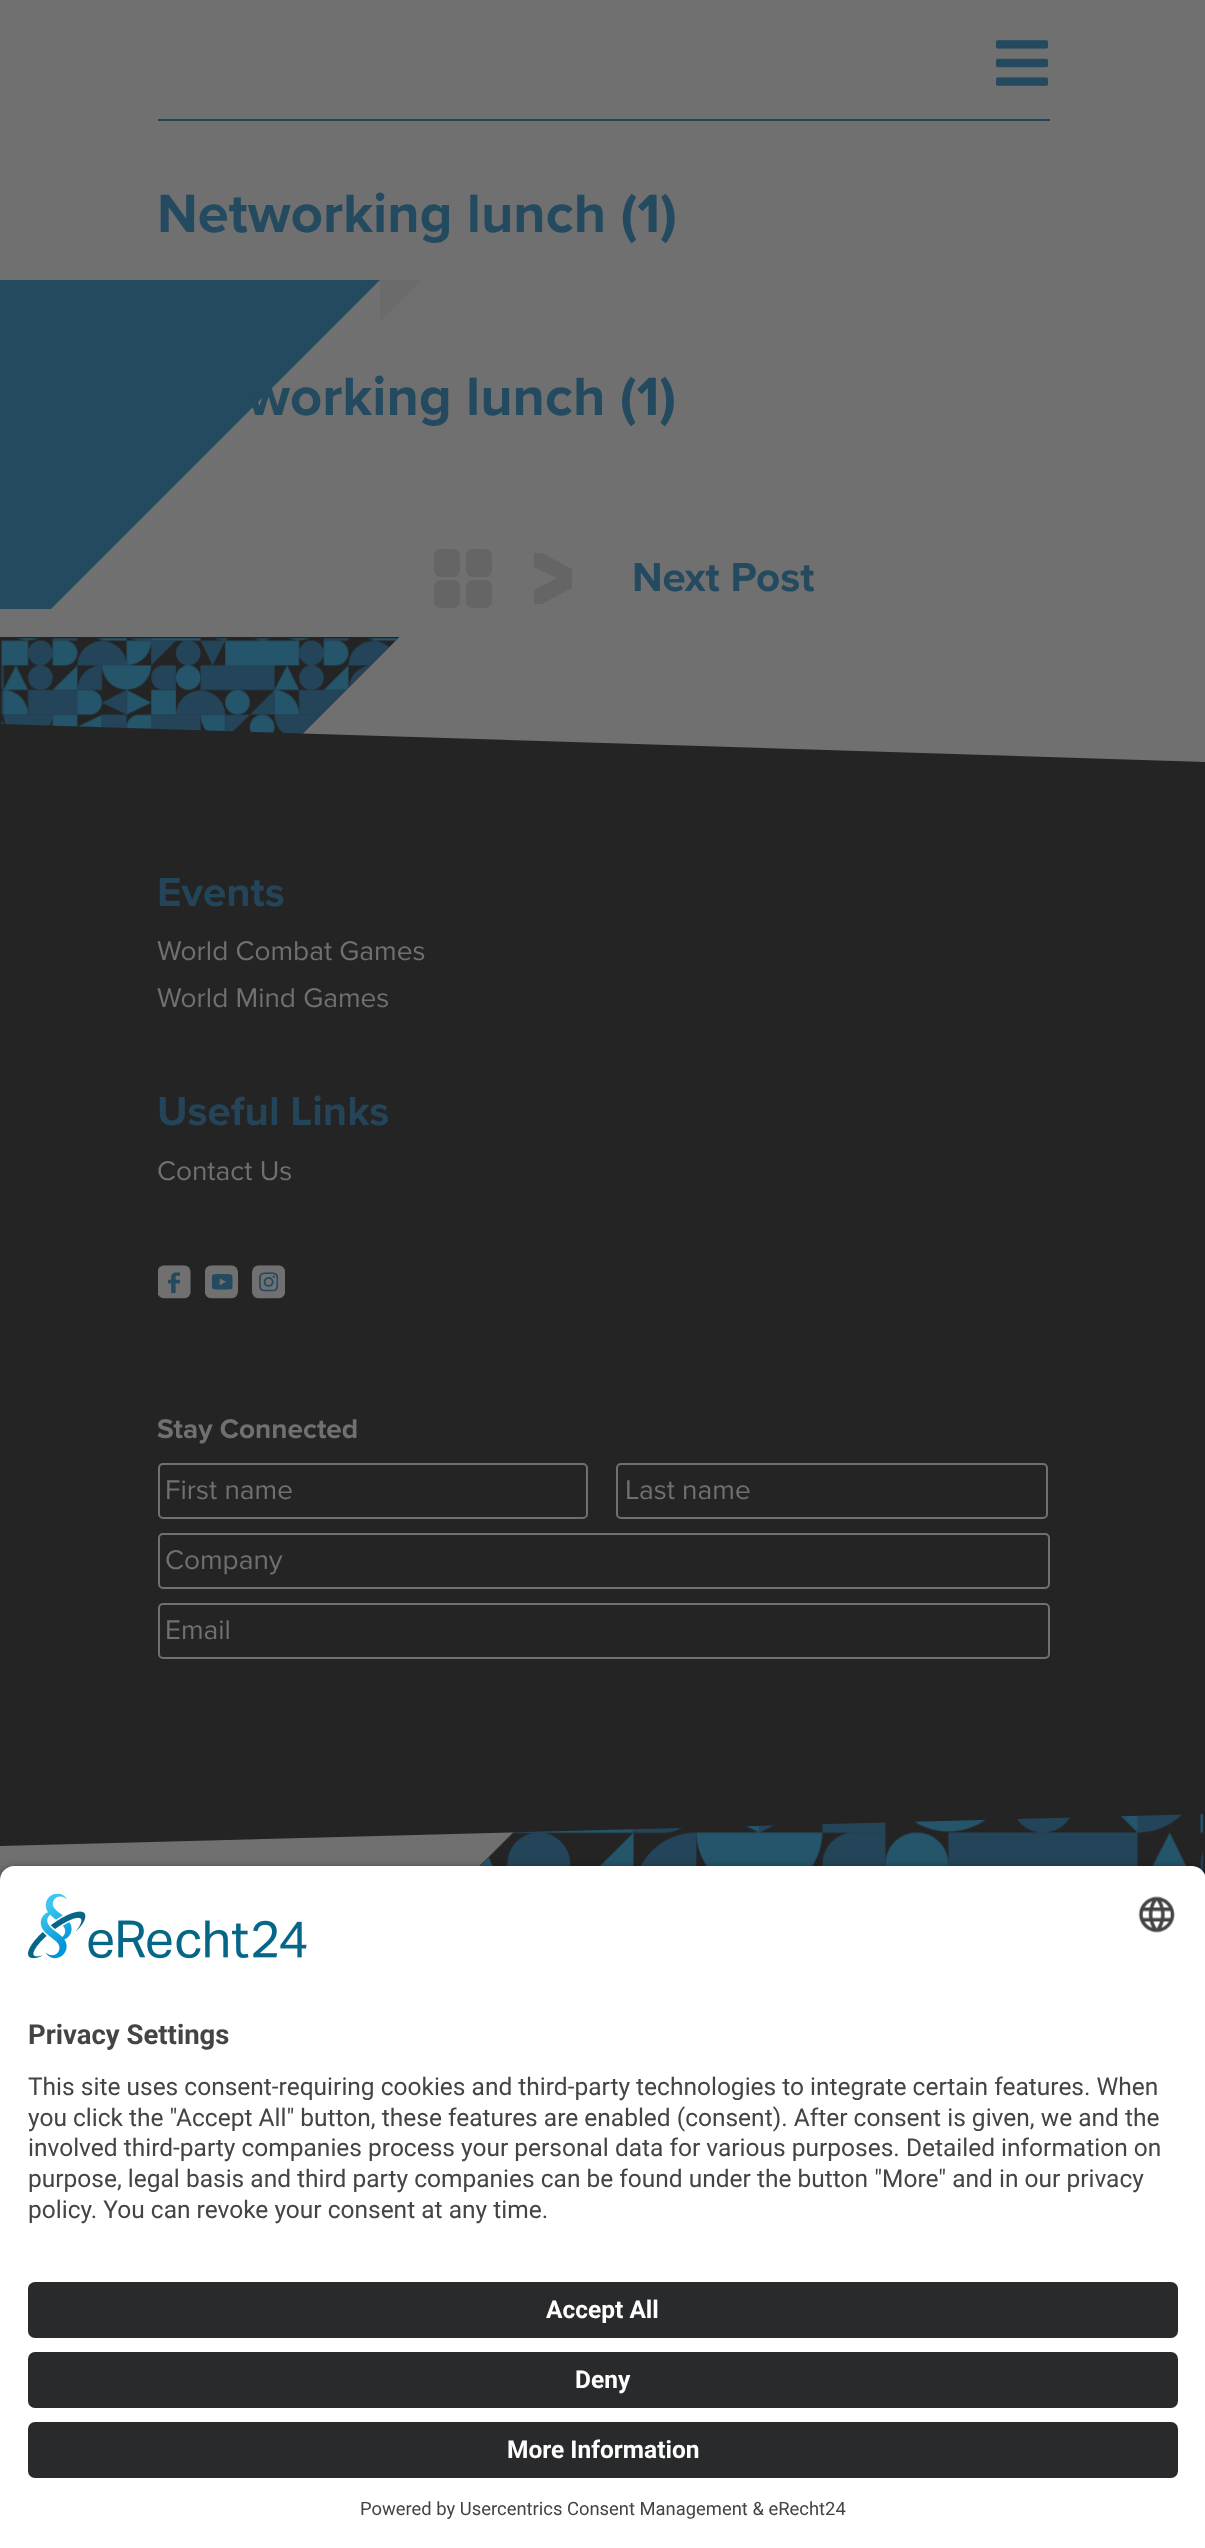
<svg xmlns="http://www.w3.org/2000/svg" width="1205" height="2548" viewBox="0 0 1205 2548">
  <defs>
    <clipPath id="clip1"><path d="M0 280h422v329H0z"/></clipPath>
    <clipPath id="clip2"><path d="M534 553h38v51H534z"/></clipPath>
  </defs>
  <rect width="100%" height="100%" fill="#707070"/>
  <image x="996" y="40" width="52" height="46" href="img/1.png"/>
  <path d="M158 119h892v2H158z" fill="#244559"/>
  <path d="M380 280H422L380 322Z" fill="#6b6b6c" fill-rule="evenodd"/>
  <g clip-path="url(#clip1)">
    <path d="M0 280H380L0 660Z" fill="#244a60" fill-rule="evenodd"/>
  </g>
  <rect x="434" y="549" width="26" height="28" rx="7" fill="#656565"/>
  <rect x="466" y="549" width="26" height="28" rx="7" fill="#656565"/>
  <rect x="434" y="580" width="26" height="28" rx="7" fill="#656565"/>
  <rect x="466" y="580" width="26" height="28" rx="7" fill="#656565"/>
  <g clip-path="url(#clip2)">
    <path d="M534 567L557 578L534 590V608L572 588V569L534 549Z" fill="#656565" fill-rule="evenodd"/>
  </g>
  <image x="0" y="637" width="400" height="97" href="img/2.png"/>
  <path d="M0 864h1205v842H0z" fill="#242424"/>
  <path d="M0 724L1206 762V902L0 864Z" fill="#242424"/>
  <image x="158" y="1265" width="33" height="34" href="img/3.png"/>
  <image x="205" y="1265" width="33" height="34" href="img/4.png"/>
  <image x="252" y="1265" width="33" height="34" href="img/5.png"/>
  <rect x="159" y="1464" width="428" height="54" rx="4" fill="none" stroke="#707070" stroke-width="2"/>
  <rect x="617" y="1464" width="430" height="54" rx="4" fill="none" stroke="#707070" stroke-width="2"/>
  <rect x="159" y="1534" width="890" height="54" rx="4" fill="none" stroke="#707070" stroke-width="2"/>
  <rect x="159" y="1604" width="890" height="54" rx="4" fill="none" stroke="#707070" stroke-width="2"/>
  <image x="479" y="1814" width="726" height="61" href="img/6.png"/>
  <path d="M0 1706L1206 1674V1814L0 1846Z" fill="#242424"/>
  <rect y="1871" width="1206" height="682" rx="14" fill="#000000cc" filter="blur(6px)"/>
  <path d="M14 1866H1192C1199.5 1866 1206 1872.5 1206 1880V2261H0V1880C0 1872.5 6.5 1866 14 1866Z" fill="#fff"/>
  <image x="28" y="1894" width="279" height="65" href="img/7.png"/>
  <image x="1138" y="1896" width="37" height="37" href="img/8.png"/>
  <path d="M0 2261h1205v287H0z" fill="#fff"/>
  <rect x="28" y="2282" width="1150" height="56" rx="7" fill="#292a2b"/>
  <rect x="28" y="2352" width="1150" height="56" rx="7" fill="#292a2b"/>
  <rect x="28" y="2422" width="1150" height="56" rx="7" fill="#292a2b"/>
  <g font-family="Proxima Nova" font-size="56" font-weight="bold" fill="#244a60">
    <text x="157" y="232">Networking lunch (1)</text>
    <text x="247" y="415">working lunch (1)</text>
  </g>
  <text x="632" y="591" font-family="Proxima Nova" font-size="42" font-weight="bold" fill="#244a60">Next Post</text>
  <text x="157" y="906" font-family="Proxima Nova" font-size="42" font-weight="bold" fill="#244559">Events</text>
  <g font-family="Proxima Nova" font-size="28" fill="#707070">
    <text x="157" y="960">World Combat Games</text>
    <text x="157" y="1007">World Mind Games</text>
  </g>
  <text x="157" y="1125" font-family="Proxima Nova" font-size="42" font-weight="bold" fill="#244559">Useful Links</text>
  <text x="157" y="1180" font-family="Proxima Nova" font-size="28" fill="#707070">Contact Us</text>
  <text x="157" y="1438" font-family="Proxima Nova" font-size="28" font-weight="bold" fill="#707070">Stay Connected</text>
  <g font-family="Proxima Nova" font-size="28" fill="#707070">
    <text x="165" y="1499">First name</text>
    <text x="625" y="1499">Last name</text>
    <text x="165" y="1569">Company</text>
    <text x="165" y="1639">Email</text>
  </g>
  <text x="28" y="2044" font-family="Roboto" font-size="27.5" font-weight="bold" fill="#444">Privacy Settings</text>
  <g font-family="Roboto" font-size="24.5" fill="#444">
    <text x="28" y="2095">This site uses consent-requiring cookies and third-party technologies to integrate certain features. When</text>
    <text x="28" y="2126">you click the "Accept All" button, these features are enabled (consent). After consent is given, we and the</text>
    <text x="28" y="2156">involved third-party companies process your personal data for various purposes. Detailed information on</text>
    <text x="28" y="2187">purpose, legal basis and third party companies can be found under the button "More" and in our privacy</text>
    <text x="28" y="2218">policy. You can revoke your consent at any time.</text>
  </g>
  <g font-family="Roboto" font-size="24.5" font-weight="bold" fill="#fff">
    <text x="546" y="2318">Accept All</text>
    <text x="575" y="2388">Deny</text>
    <text x="507" y="2458">More Information</text>
  </g>
  <text x="360" y="2515" font-family="Roboto" font-size="18.4" fill="#444">Powered by Usercentrics Consent Management &amp; eRecht24</text>
</svg>
